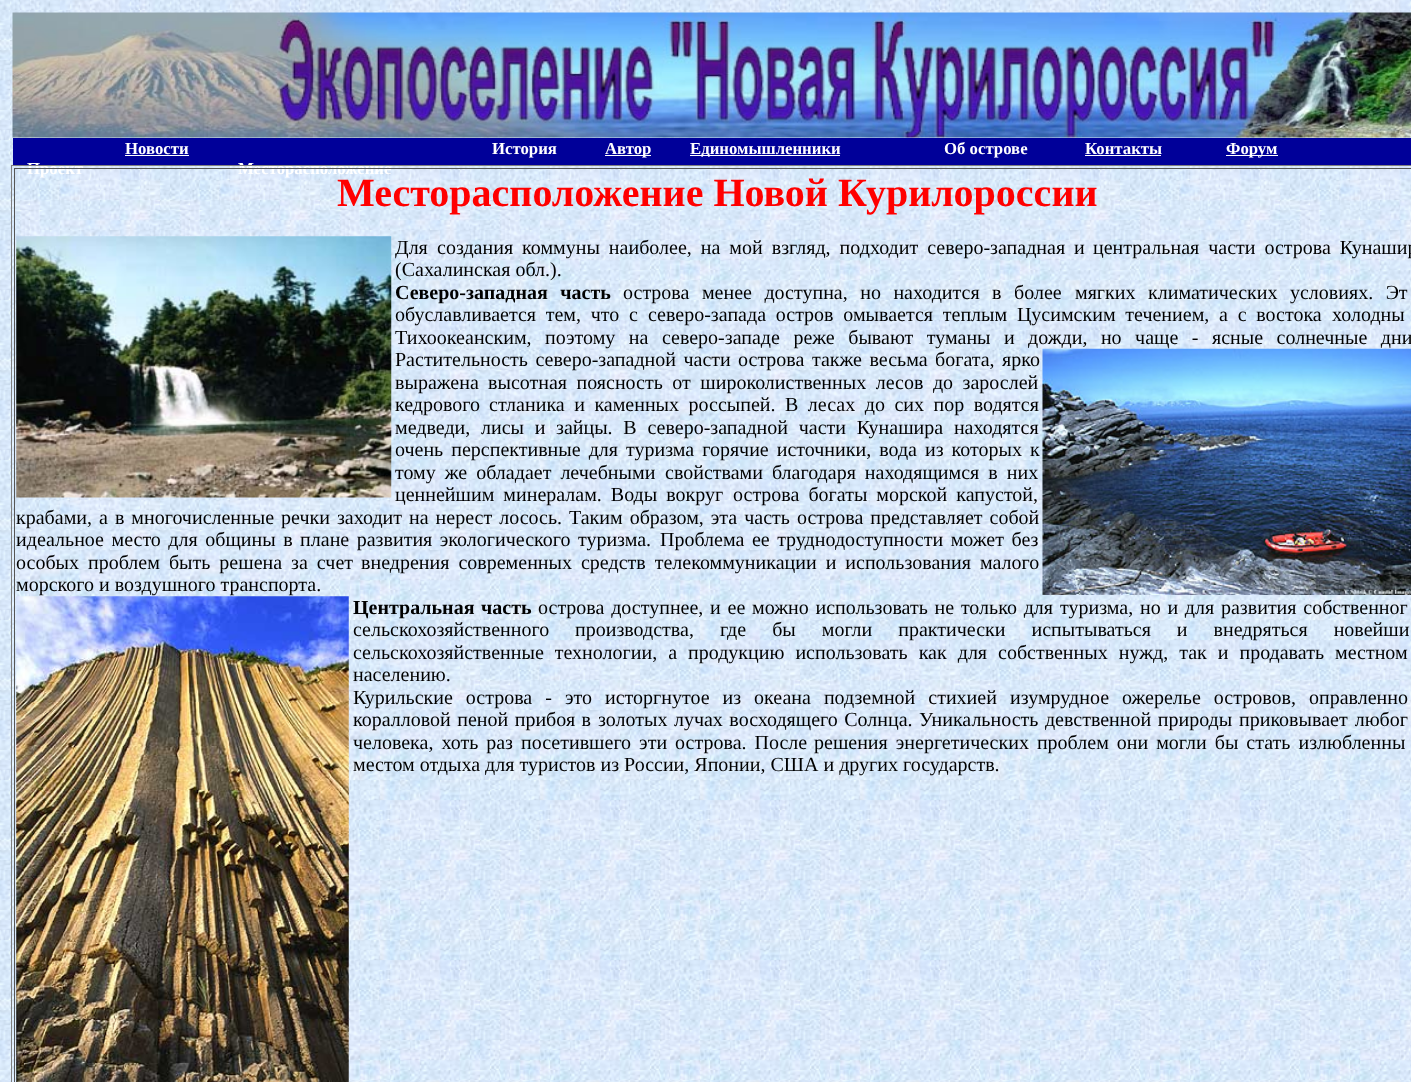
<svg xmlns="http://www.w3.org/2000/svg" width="1411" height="1082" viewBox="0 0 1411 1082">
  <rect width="100%" height="100%" fill="#fff"/>
  <image x="0" y="0" width="1411" height="1082" href="img/1.png"/>
  <image x="12" y="12" width="1399" height="126" href="img/2.png"/>
  <path d="M13 138h1398v27H13z" fill="#009"/>
  <path d="M125 155h64v1H125z" fill="#fff"/>
  <path d="M605 155h46v1H605z" fill="#fff"/>
  <path d="M690 155h150v1H690z" fill="#fff"/>
  <path d="M1085 155h76v1H1085z" fill="#fff"/>
  <path d="M1226 155h52v1H1226z" fill="#fff"/>
  <image x="16" y="236" width="376" height="262" href="img/3.png"/>
  <image x="1042" y="348" width="369" height="247" href="img/4.png"/>
  <image x="16" y="596" width="333" height="486" href="img/5.png"/>
  <g font-family="Liberation Serif" font-size="16.75" font-weight="bold" fill="#fff">
    <text x="125" y="154">Новости</text>
    <text x="492" y="154">История</text>
    <text x="605" y="154">Автор</text>
    <text x="690" y="154">Единомышленники</text>
    <text x="944" y="154">Об острове</text>
    <text x="1085" y="154">Контакты</text>
    <text x="1226" y="154">Форум</text>
    <text x="27" y="174">Проект</text>
    <text x="238" y="174">Месторасположение</text>
  </g>
  <path d="M11 165h1400v1H11z" fill="#808080"/>
  <path d="M11 165h1v917H11z" fill="#808080"/>
  <path d="M14 168h1397v1H14z" fill="#555"/>
  <path d="M14 168h1v914H14z" fill="#555"/>
  <text x="337" y="206" font-family="Liberation Serif" font-size="40" font-weight="bold" fill="#f00">Месторасположение Новой Курилороссии</text>
  <g font-family="Liberation Serif" font-size="20" fill="#000">
    <text x="395" y="254">Для</text>
    <text x="437" y="254" word-spacing="4">создания коммуны наиболее, на мой взгляд, подходит северо-западная и</text>
    <text x="1093" y="254" word-spacing="4">центральная части острова Кунашир</text>
    <text x="395" y="276">(Сахалинская обл.).</text>
  </g>
  <text x="395" y="299" word-spacing="7.5" font-family="Liberation Serif" font-size="20" font-weight="bold" fill="#000">Северо-западная часть</text>
  <g font-family="Liberation Serif" font-size="20" fill="#000">
    <text x="623" y="299" word-spacing="7.5">острова менее доступна, но находится в более</text>
    <text x="1075" y="299" word-spacing="7.5">мягких климатических условиях. Эт</text>
    <text x="395" y="321" word-spacing="4.75">обуславливается тем, что с</text>
    <text x="648" y="321" word-spacing="4.75">северо-запада остров омывается теплым Цусимским течением, а с востока</text>
    <text x="1332" y="321">холодны</text>
    <text x="395" y="344" word-spacing="8.5">Тихоокеанским, поэтому на северо-западе реже бывают туманы и</text>
    <text x="1028" y="344" word-spacing="8.5">дожди, но чаще - ясные солнечные дни</text>
    <text x="395" y="366" word-spacing="2.5">Растительность северо-западной части</text>
    <text x="738" y="366" word-spacing="2.5">острова также весьма богата, ярко</text>
    <text x="395" y="389">выражена</text>
    <text x="488" y="389" word-spacing="4.5">высотная поясность от широколиственных лесов до зарослей</text>
    <text x="395" y="411">кедрового</text>
    <text x="489" y="411" word-spacing="4.5">стланика и каменных россыпей. В лесах до сих пор водятся</text>
    <text x="395" y="434" word-spacing="5.75">медведи, лисы и</text>
    <text x="556" y="434" word-spacing="5.75">зайцы. В северо-западной части Кунашира находятся</text>
    <text x="395" y="456" word-spacing="3">очень перспективные для</text>
    <text x="626" y="456" word-spacing="3">туризма горячие источники, вода из которых к</text>
    <text x="395" y="479" word-spacing="4">тому же обладает лечебными</text>
    <text x="665" y="479" word-spacing="4">свойствами благодаря находящимся в них</text>
    <text x="395" y="501" word-spacing="4">ценнейшим минералам. Воды вокруг</text>
    <text x="733" y="501" word-spacing="4">острова богаты морской капустой,</text>
    <text x="16" y="524" word-spacing="2">крабами, а в многочисленные речки заходит</text>
    <text x="409" y="524" word-spacing="2">на нерест лосось. Таким образом, эта часть острова представляет собой</text>
    <text x="16" y="546" word-spacing="2.5">идеальное место для общины в плане развития экологического туризма.</text>
    <text x="660" y="546" word-spacing="2.5">Проблема ее труднодоступности может без</text>
    <text x="16" y="569" word-spacing="4">особых проблем быть решена за счет</text>
    <text x="361" y="569" word-spacing="4">внедрения современных средств телекоммуникации и использования малого</text>
    <text x="16" y="591">морского и воздушного транспорта.</text>
  </g>
  <g font-family="Liberation Serif" font-size="20" font-weight="bold" fill="#000">
    <text x="353" y="614">Центральная</text>
    <text x="481" y="614">часть</text>
  </g>
  <g font-family="Liberation Serif" font-size="20" fill="#000">
    <text x="538" y="614" word-spacing="1.75">острова доступнее, и ее можно использовать не только для</text>
    <text x="1060" y="614" word-spacing="1.75">туризма, но и для развития собственног</text>
    <text x="353" y="636">сельскохозяйственного</text>
    <text x="575" y="636" word-spacing="21">производства, где бы могли практически испытываться и внедряться новейши</text>
    <text x="353" y="659" word-spacing="6">сельскохозяйственные технологии, а продукцию использовать как для</text>
    <text x="998" y="659" word-spacing="6">собственных нужд, так и продавать местном</text>
    <text x="353" y="681">населению.</text>
    <text x="353" y="704" word-spacing="8">Курильские острова - это исторгнутое из океана подземной стихией</text>
    <text x="1010" y="704" word-spacing="8">изумрудное ожерелье островов, оправленно</text>
    <text x="353" y="726" word-spacing="1.5">коралловой пеной прибоя в</text>
    <text x="598" y="726" word-spacing="1.5">золотых лучах восходящего Солнца. Уникальность девственной природы</text>
    <text x="1239" y="726" word-spacing="2">приковывает любог</text>
    <text x="353" y="749" word-spacing="3">человека, хоть раз посетившего эти острова. После</text>
    <text x="814" y="749" word-spacing="3">решения энергетических проблем они могли бы стать излюбленны</text>
    <text x="353" y="771">местом отдыха для туристов из России, Японии, США и других государств.</text>
  </g>
</svg>
